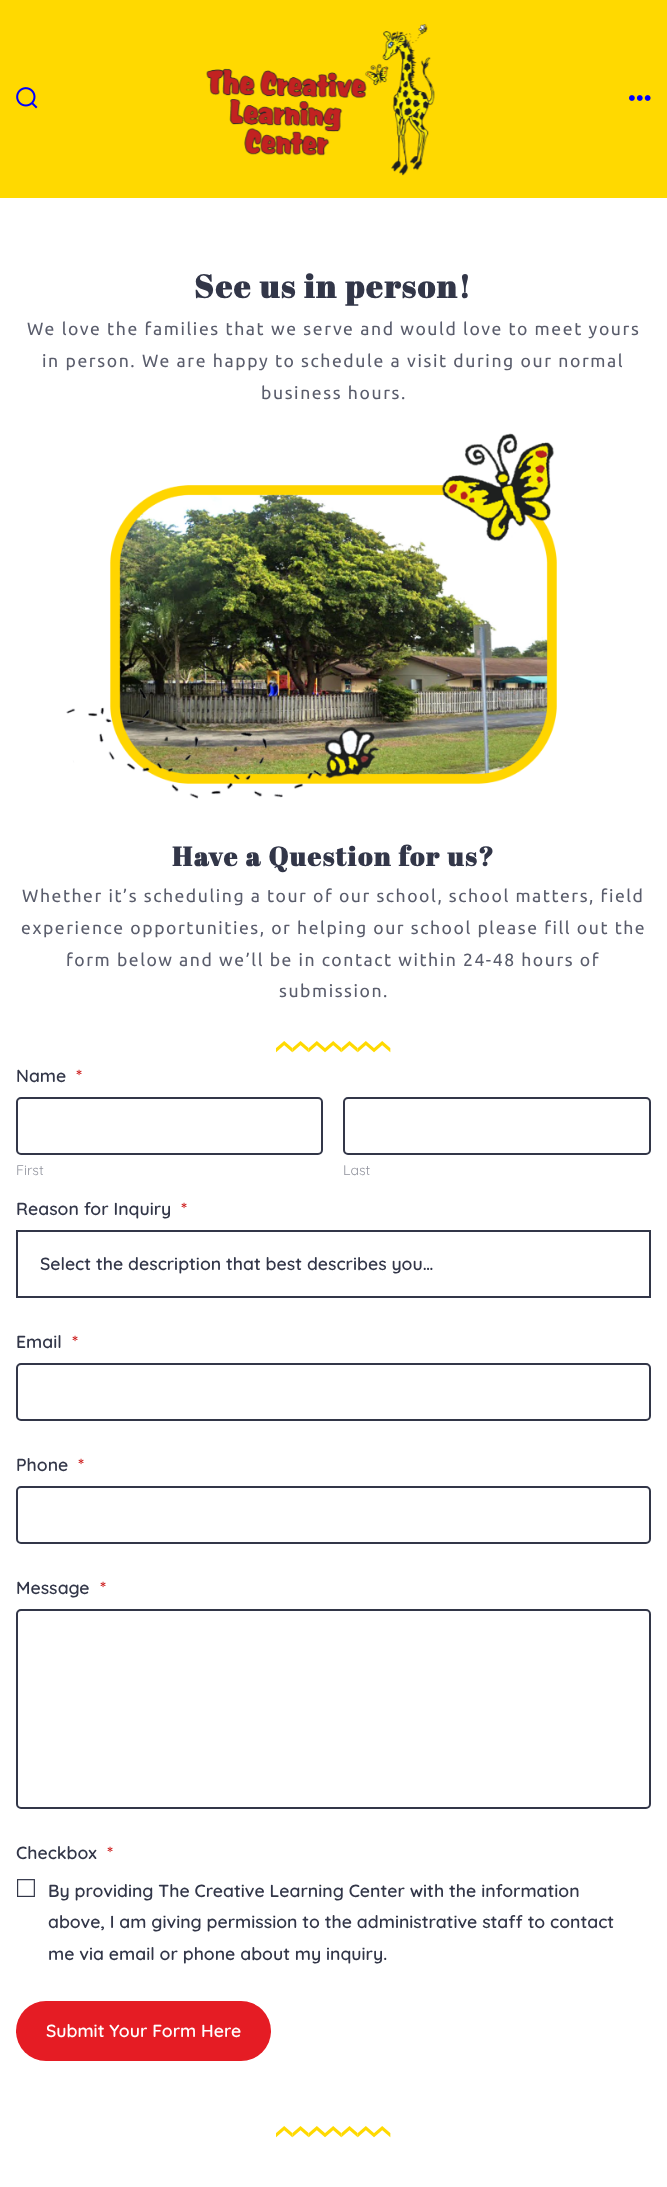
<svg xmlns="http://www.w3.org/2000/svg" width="667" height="2187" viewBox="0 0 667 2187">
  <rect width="100%" height="100%" fill="#fff"/>
  <path d="M0 0h667v198H0z" fill="#ffd900"/>
  <image x="16" y="87" width="22" height="22" href="img/1.png"/>
  <image x="206" y="24" width="229" height="152" href="img/2.png"/>
  <image x="629" y="95" width="22" height="6" href="img/3.png"/>
  <image x="66" y="433" width="491" height="366" href="img/4.png"/>
  <image x="276" y="1041" width="115" height="12" href="img/5.png"/>
  <rect x="17" y="1098" width="305" height="56" rx="4" fill="none" stroke="#323648" stroke-width="2"/>
  <rect x="344" y="1098" width="306" height="56" rx="4" fill="none" stroke="#323648" stroke-width="2"/>
  <path d="M17 1231h633v66H17z" fill="none" stroke="#323648" stroke-width="2"/>
  <rect x="17" y="1364" width="633" height="56" rx="4" fill="none" stroke="#323648" stroke-width="2"/>
  <rect x="17" y="1487" width="633" height="56" rx="4" fill="none" stroke="#323648" stroke-width="2"/>
  <rect x="17" y="1610" width="633" height="198" rx="4" fill="none" stroke="#323648" stroke-width="2"/>
  <image x="17" y="1879" width="18" height="18" href="img/6.png"/>
  <rect x="16" y="2001" width="255" height="60" rx="30" fill="#e51c24"/>
  <image x="276" y="2126" width="115" height="12" href="img/5.png"/>
  <text x="194" y="298" font-family="Abril Fatface" font-size="32.6" font-weight="bold" letter-spacing="1.6" fill="#323648">See us in person!</text>
  <g font-family="Ubuntu" font-size="17.6" letter-spacing="1.6" fill="#5a5d6c">
    <text x="27" y="335">We love the families that we serve and would love to meet yours</text>
    <text x="42" y="367">in person. We are happy to schedule a visit during our normal</text>
    <text x="261" y="399">business hours.</text>
  </g>
  <text x="172" y="866" font-family="Abril Fatface" font-size="26.8" font-weight="bold" letter-spacing="1.6" fill="#323648">Have a Question for us?</text>
  <g font-family="Ubuntu" font-size="17.6" letter-spacing="1.55" fill="#5a5d6c">
    <text x="22" y="902">Whether it’s scheduling a tour of our school, school matters, field</text>
    <text x="21" y="934">experience opportunities, or helping our school please fill out the</text>
    <text x="66" y="966">form below and we’ll be in contact within 24-48 hours of</text>
    <text x="279" y="997">submission.</text>
  </g>
  <text x="16" y="1082" font-family="Quicksand" font-size="17.6" font-weight="600" fill="#323648">Name</text>
  <text x="76" y="1082" font-family="Quicksand" font-size="17.6" font-weight="600" fill="#cc1818">*</text>
  <g font-family="Quicksand" font-size="14" fill="#92949e">
    <text x="16" y="1175">First</text>
    <text x="343" y="1175">Last</text>
  </g>
  <text x="16" y="1215" font-family="Quicksand" font-size="17.6" font-weight="600" fill="#323648">Reason for Inquiry</text>
  <text x="181" y="1215" font-family="Quicksand" font-size="17.6" font-weight="600" fill="#cc1818">*</text>
  <g font-family="Quicksand" font-size="17.6" font-weight="600" fill="#323648">
    <text x="40" y="1270">Select the description that best describes you…</text>
    <text x="16" y="1348">Email</text>
  </g>
  <text x="72" y="1348" font-family="Quicksand" font-size="17.6" font-weight="600" fill="#cc1818">*</text>
  <text x="16" y="1471" font-family="Quicksand" font-size="17.6" font-weight="600" fill="#323648">Phone</text>
  <text x="78" y="1471" font-family="Quicksand" font-size="17.6" font-weight="600" fill="#cc1818">*</text>
  <text x="16" y="1594" font-family="Quicksand" font-size="17.6" font-weight="600" fill="#323648">Message</text>
  <text x="100" y="1594" font-family="Quicksand" font-size="17.6" font-weight="600" fill="#cc1818">*</text>
  <text x="16" y="1859" font-family="Quicksand" font-size="17.6" font-weight="600" fill="#323648">Checkbox</text>
  <text x="107" y="1859" font-family="Quicksand" font-size="17.6" font-weight="600" fill="#cc1818">*</text>
  <g font-family="Quicksand" font-size="17.6" font-weight="600" fill="#323648">
    <text x="48" y="1897">By providing The Creative Learning Center with the information</text>
    <text x="48" y="1928">above, I am giving permission to the administrative staff to contact</text>
    <text x="48" y="1960">me via email or phone about my inquiry.</text>
  </g>
  <text x="46" y="2037" font-family="Quicksand" font-size="17.6" font-weight="600" fill="#fff">Submit Your Form Here</text>
</svg>
